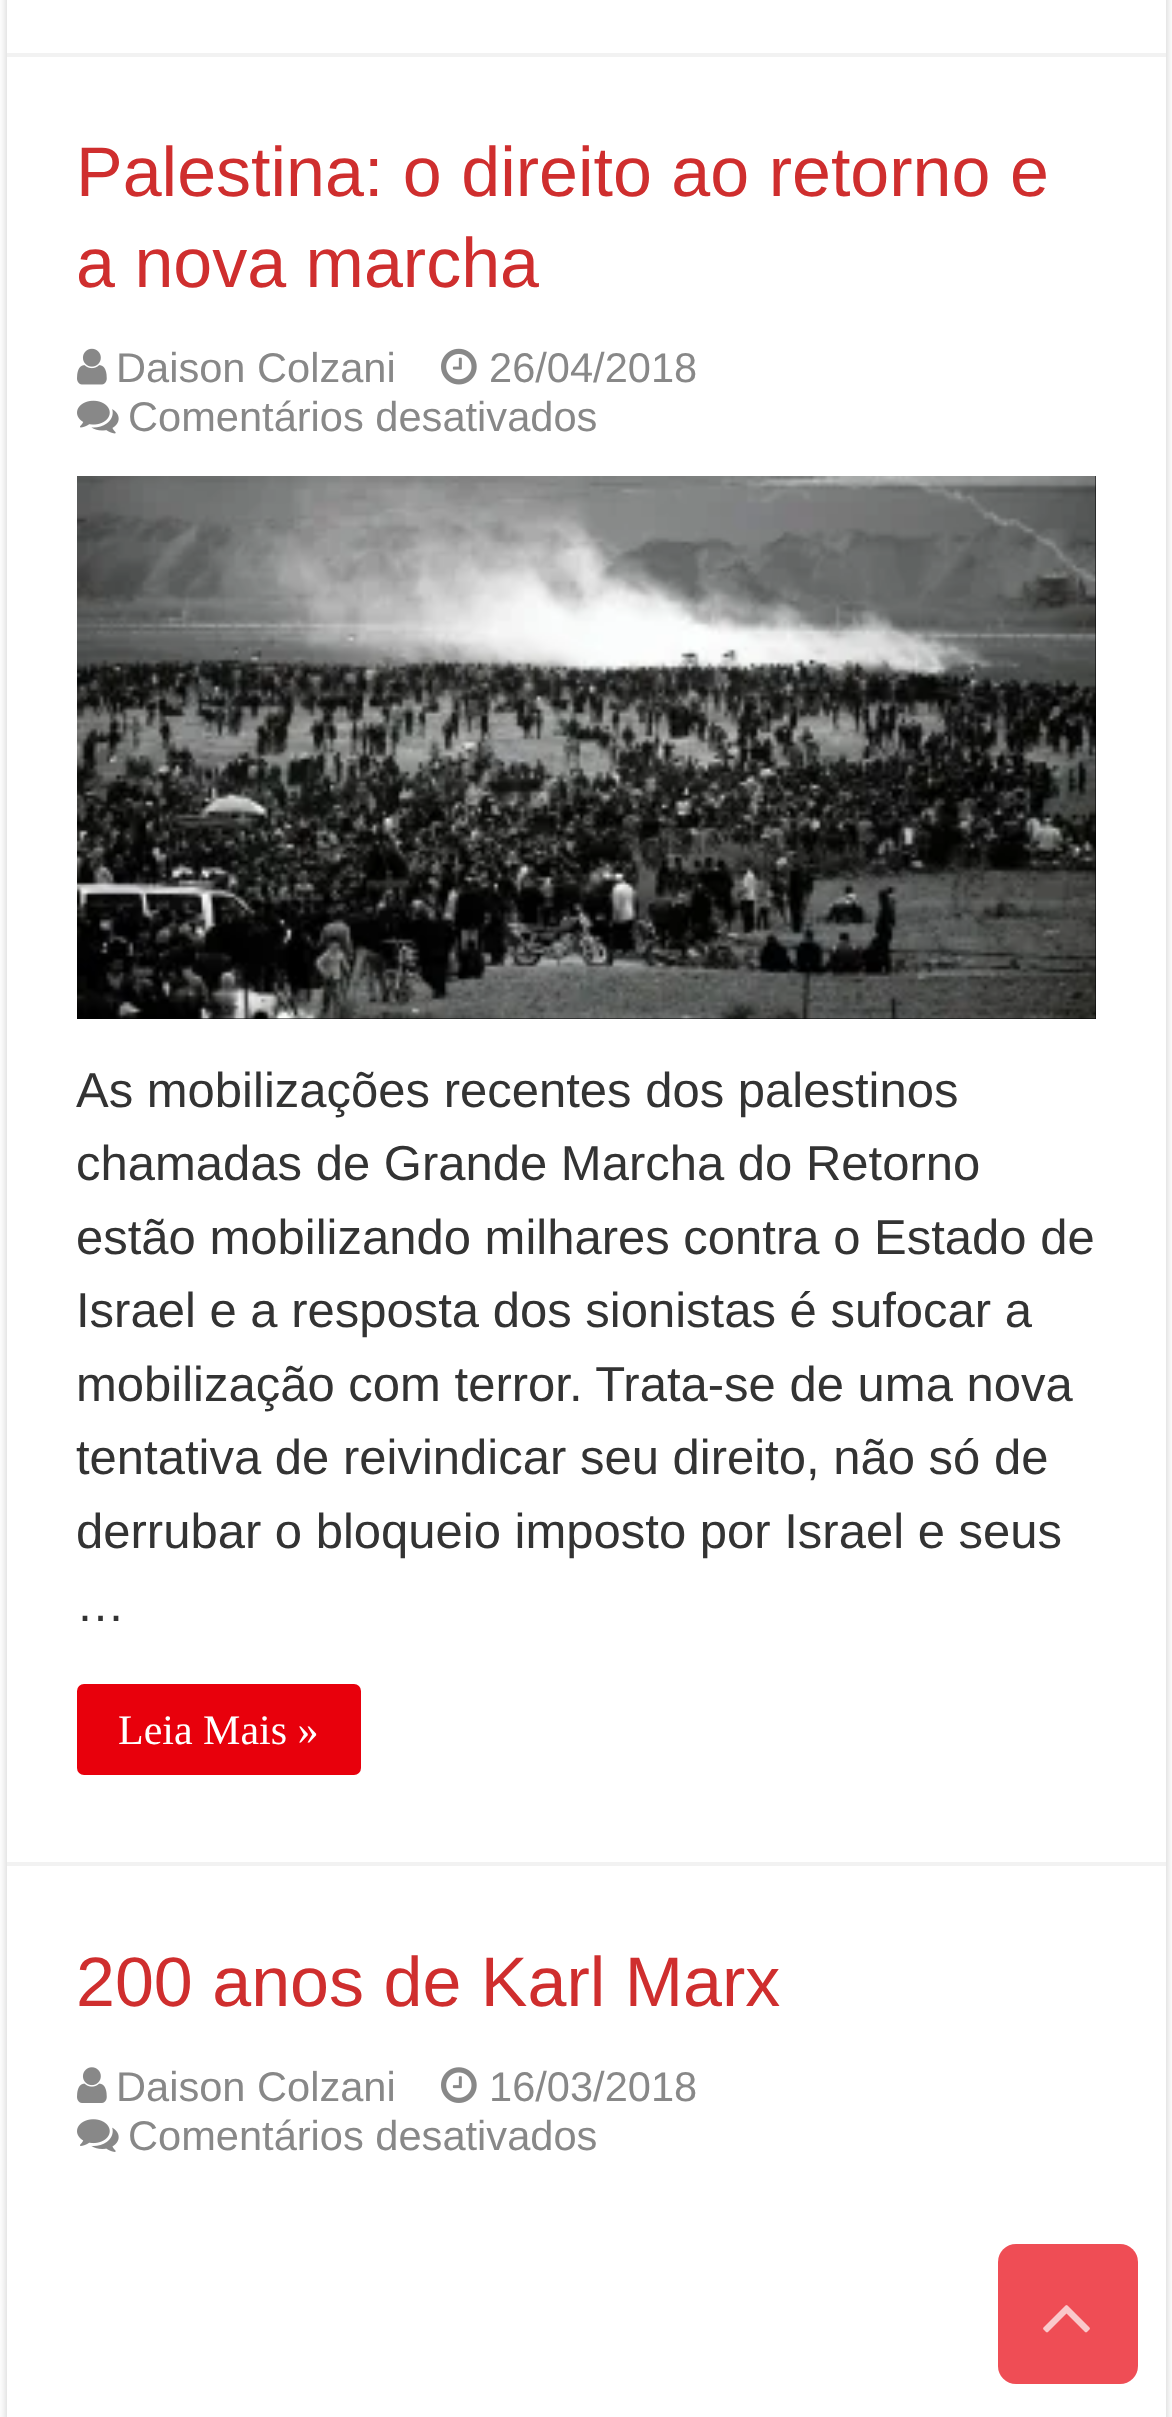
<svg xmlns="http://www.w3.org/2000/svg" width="1172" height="2417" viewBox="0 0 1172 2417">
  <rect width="100%" height="100%" fill="#fff"/>
  <path d="M7 -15h1159v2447H7z" fill="#cacaca" filter="blur(5px)"/>
  <path d="M7 0h1159v2417H7z" fill="#fff"/>
  <path d="M7 53h1159v4H7z" fill="#f2f2f2"/>
  <path d="M7 1862h1159v4H7z" fill="#f2f2f2"/>
  <image x="77" y="348" width="30" height="37" href="img/1.png"/>
  <image x="441" y="348" width="36" height="37" href="img/2.png"/>
  <image x="77" y="400" width="42" height="34" href="img/3.png"/>
  <path d="M77 476h1019v543H77z" fill="#000"/>
  <image x="77" y="476" width="1019" height="543" href="img/4.png"/>
  <rect x="77" y="1684" width="284" height="91" rx="7" fill="#e8000c"/>
  <image x="77" y="2067" width="30" height="36" href="img/5.png"/>
  <image x="441" y="2067" width="36" height="36" href="img/6.png"/>
  <image x="77" y="2119" width="42" height="33" href="img/7.png"/>
  <rect x="998" y="2244" width="140" height="140" rx="18" fill="#ef4d55"/>
  <image x="1043" y="2305" width="47" height="28" href="img/8.png"/>
  <g font-family="Liberation Sans" font-size="70" fill="#cf2e2e">
    <text x="76" y="196">Palestina: o direito ao retorno e</text>
    <text x="76" y="287">a nova marcha</text>
  </g>
  <g font-family="Liberation Sans" font-size="41.6" fill="#888">
    <text x="116" y="382">Daison Colzani</text>
    <text x="489" y="382">26/04/2018</text>
    <text x="128" y="431">Comentários desativados</text>
  </g>
  <g font-family="Liberation Sans" font-size="49" fill="#333">
    <text x="76" y="1107">As mobilizações recentes dos palestinos</text>
    <text x="76" y="1180">chamadas de Grande Marcha do Retorno</text>
    <text x="76" y="1254">estão mobilizando milhares contra o Estado de</text>
    <text x="76" y="1327">Israel e a resposta dos sionistas é sufocar a</text>
    <text x="76" y="1401">mobilização com terror. Trata-se de uma nova</text>
    <text x="76" y="1474">tentativa de reivindicar seu direito, não só de</text>
    <text x="76" y="1548">derrubar o bloqueio imposto por Israel e seus</text>
    <text x="76" y="1621">…</text>
  </g>
  <text x="118" y="1744" font-family="Liberation Serif" font-size="42" fill="#fff">Leia Mais »</text>
  <text x="76" y="2006" font-family="Liberation Sans" font-size="70" fill="#cf2e2e">200 anos de Karl Marx</text>
  <g font-family="Liberation Sans" font-size="41.6" fill="#888">
    <text x="116" y="2101">Daison Colzani</text>
    <text x="489" y="2101">16/03/2018</text>
    <text x="128" y="2150">Comentários desativados</text>
  </g>
</svg>
